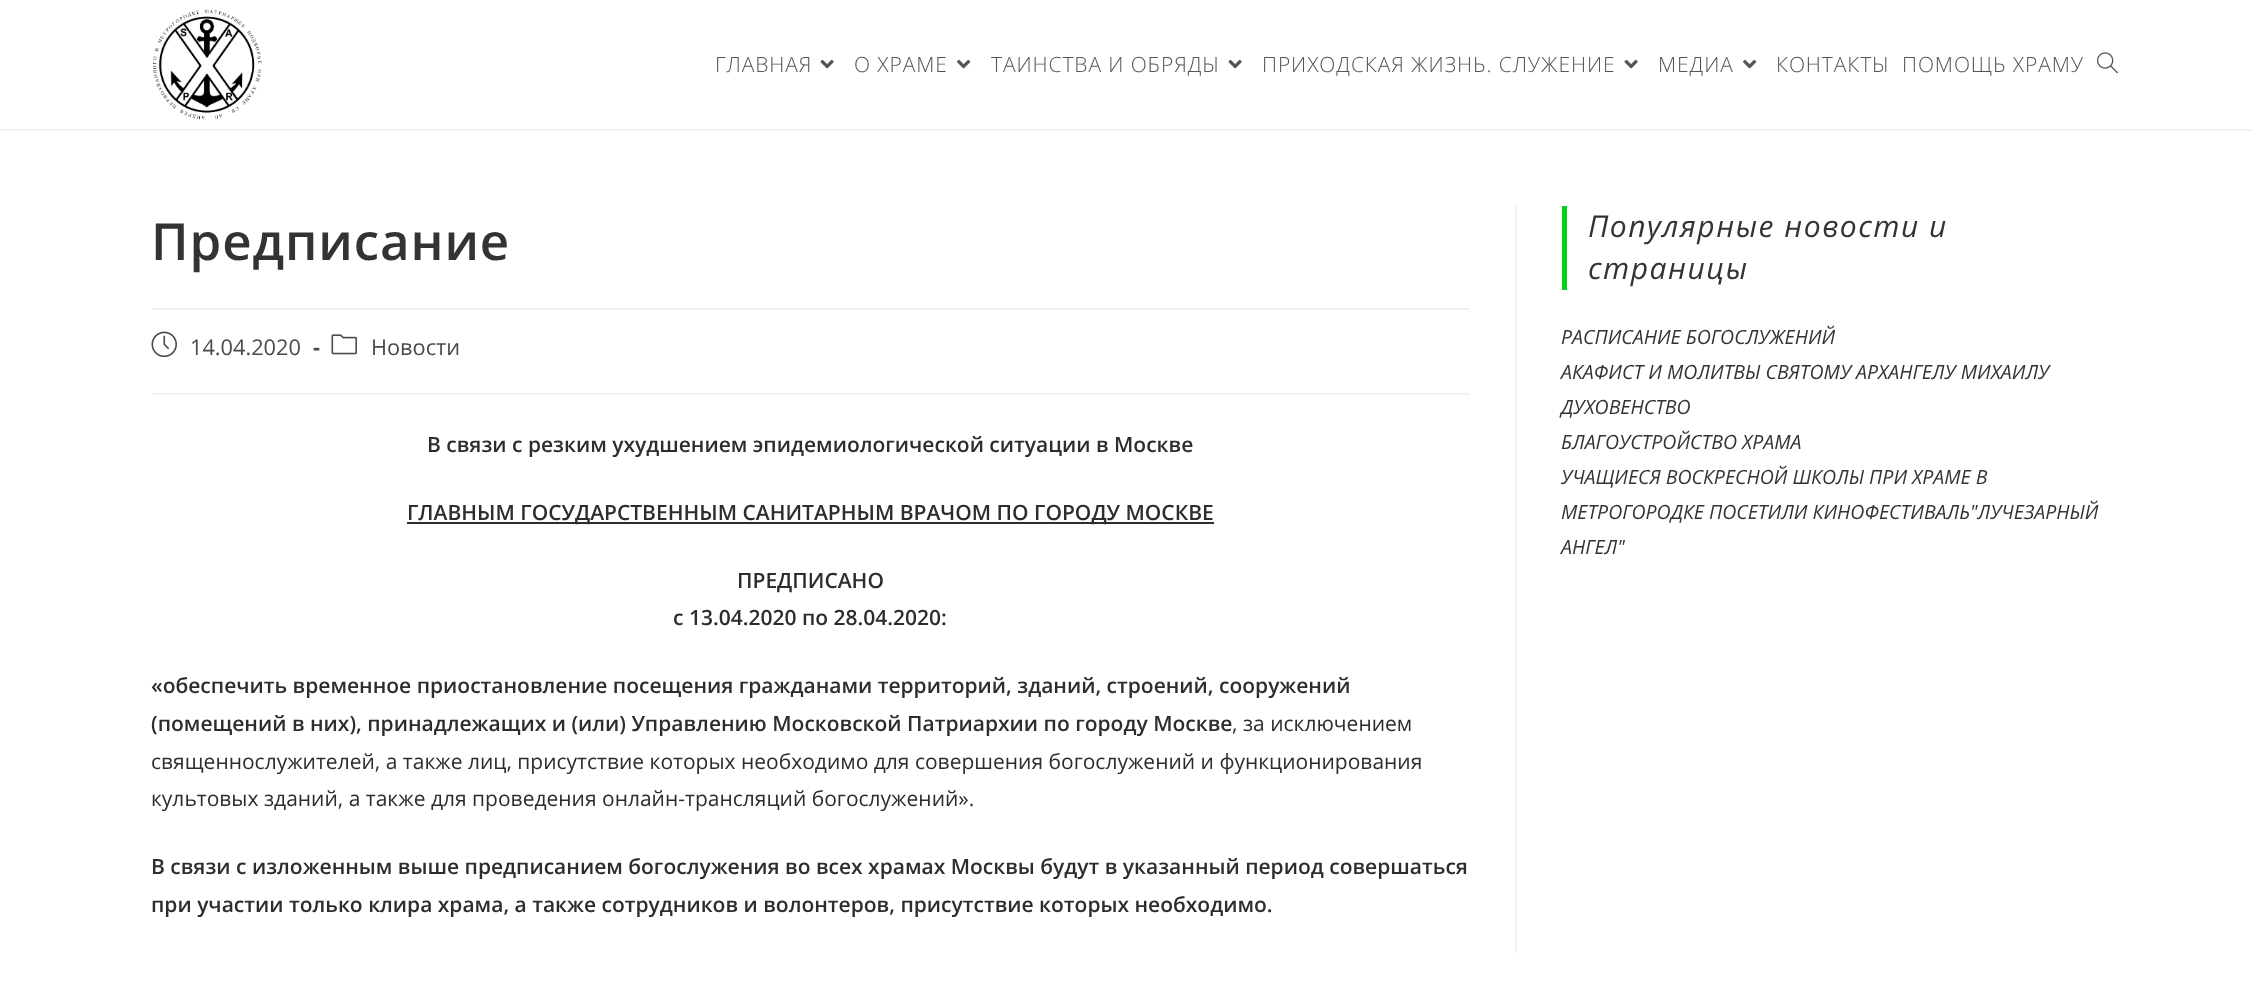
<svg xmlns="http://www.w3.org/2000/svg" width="2251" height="994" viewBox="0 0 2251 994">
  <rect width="100%" height="100%" fill="#fff"/>
  <path d="M0 129h2251v2H0z" fill="#f1f1f1"/>
  <image x="153" y="9" width="109" height="111" href="img/1.png"/>
  <image x="820" y="59" width="14" height="10" href="img/2.png"/>
  <image x="957" y="59" width="14" height="10" href="img/3.png"/>
  <image x="1228" y="59" width="14" height="10" href="img/2.png"/>
  <image x="1624" y="59" width="14" height="10" href="img/2.png"/>
  <image x="1743" y="59" width="14" height="10" href="img/3.png"/>
  <image x="2096" y="52" width="22" height="22" href="img/4.png"/>
  <path d="M1515 206h2v747H1515z" fill="#f1f1f1"/>
  <path d="M152 308h1318v2H152z" fill="#f1f1f1"/>
  <path d="M152 393h1318v2H152z" fill="#f1f1f1"/>
  <image x="151" y="331" width="26" height="27" href="img/5.png"/>
  <image x="331" y="334" width="26" height="21" href="img/6.png"/>
  <path d="M407 522h807v2H407z" fill="#2d2d2d"/>
  <path d="M1562 206h5v84H1562z" fill="#00d318"/>
  <g font-family="Open Sans" font-size="21" font-weight="300" letter-spacing="0.9" fill="#555">
    <text x="715" y="72">ГЛАВНАЯ</text>
    <text x="854" y="72">О ХРАМЕ</text>
    <text x="991" y="72">ТАИНСТВА И ОБРЯДЫ</text>
    <text x="1262" y="72">ПРИХОДСКАЯ ЖИЗНЬ. СЛУЖЕНИЕ</text>
    <text x="1658" y="72">МЕДИА</text>
    <text x="1776" y="72">КОНТАКТЫ</text>
    <text x="1902" y="72">ПОМОЩЬ ХРАМУ</text>
  </g>
  <text x="151" y="260" font-family="Open Sans" font-size="51" font-weight="600" letter-spacing="0.9" fill="#333">Предписание</text>
  <text x="190" y="355" font-family="Open Sans" font-size="21.75" fill="#4a4a4a">14.04.2020</text>
  <text x="313" y="355" font-family="Open Sans" font-size="21.75" font-weight="bold" fill="#4a4a4a">-</text>
  <text x="371" y="355" font-family="Open Sans" font-size="21.75" fill="#4a4a4a">Новости</text>
  <g font-family="Open Sans" font-size="21" font-weight="600" fill="#2d2d2d">
    <text x="427" y="452">В связи с резким ухудшением эпидемиологической ситуации в Москве</text>
    <text x="407" y="520">ГЛАВНЫМ ГОСУДАРСТВЕННЫМ САНИТАРНЫМ ВРАЧОМ ПО ГОРОДУ МОСКВЕ</text>
    <text x="737" y="588">ПРЕДПИСАНО</text>
    <text x="673" y="625">с 13.04.2020 по 28.04.2020:</text>
    <text x="151" y="693">«обеспечить временное приостановление посещения гражданами территорий, зданий, строений, сооружений</text>
    <text x="151" y="731">(помещений в них), принадлежащих и (или) Управлению Московской Патриархии по городу Москве</text>
  </g>
  <g font-family="Open Sans" font-size="21" fill="#2d2d2d">
    <text x="1232" y="731">, за исключением</text>
    <text x="151" y="769">священнослужителей, а также лиц, присутствие которых необходимо для совершения богослужений и функционирования</text>
    <text x="151" y="806">культовых зданий, а также для проведения онлайн-трансляций богослужений».</text>
  </g>
  <g font-family="Open Sans" font-size="21" font-weight="600" fill="#2d2d2d">
    <text x="151" y="874">В связи с изложенным выше предписанием богослужения во всех храмах Москвы будут в указанный период совершаться</text>
    <text x="151" y="912">при участии только клира храма, а также сотрудников и волонтеров, присутствие которых необходимо.</text>
  </g>
  <g font-family="Open Sans" font-size="30" font-style="italic" letter-spacing="1.5" fill="#333">
    <text x="1588" y="237">Популярные новости и</text>
    <text x="1588" y="279">страницы</text>
  </g>
  <g font-family="Open Sans" font-size="19.5" font-style="italic" fill="#333">
    <text x="1561" y="344">РАСПИСАНИЕ БОГОСЛУЖЕНИЙ</text>
    <text x="1561" y="379">АКАФИСТ И МОЛИТВЫ СВЯТОМУ АРХАНГЕЛУ МИХАИЛУ</text>
    <text x="1561" y="414">ДУХОВЕНСТВО</text>
    <text x="1561" y="449">БЛАГОУСТРОЙСТВО ХРАМА</text>
    <text x="1561" y="484">УЧАЩИЕСЯ ВОСКРЕСНОЙ ШКОЛЫ ПРИ ХРАМЕ В</text>
    <text x="1561" y="519">МЕТРОГОРОДКЕ ПОСЕТИЛИ КИНОФЕСТИВАЛЬ"ЛУЧЕЗАРНЫЙ</text>
    <text x="1561" y="554">АНГЕЛ"</text>
  </g>
</svg>
